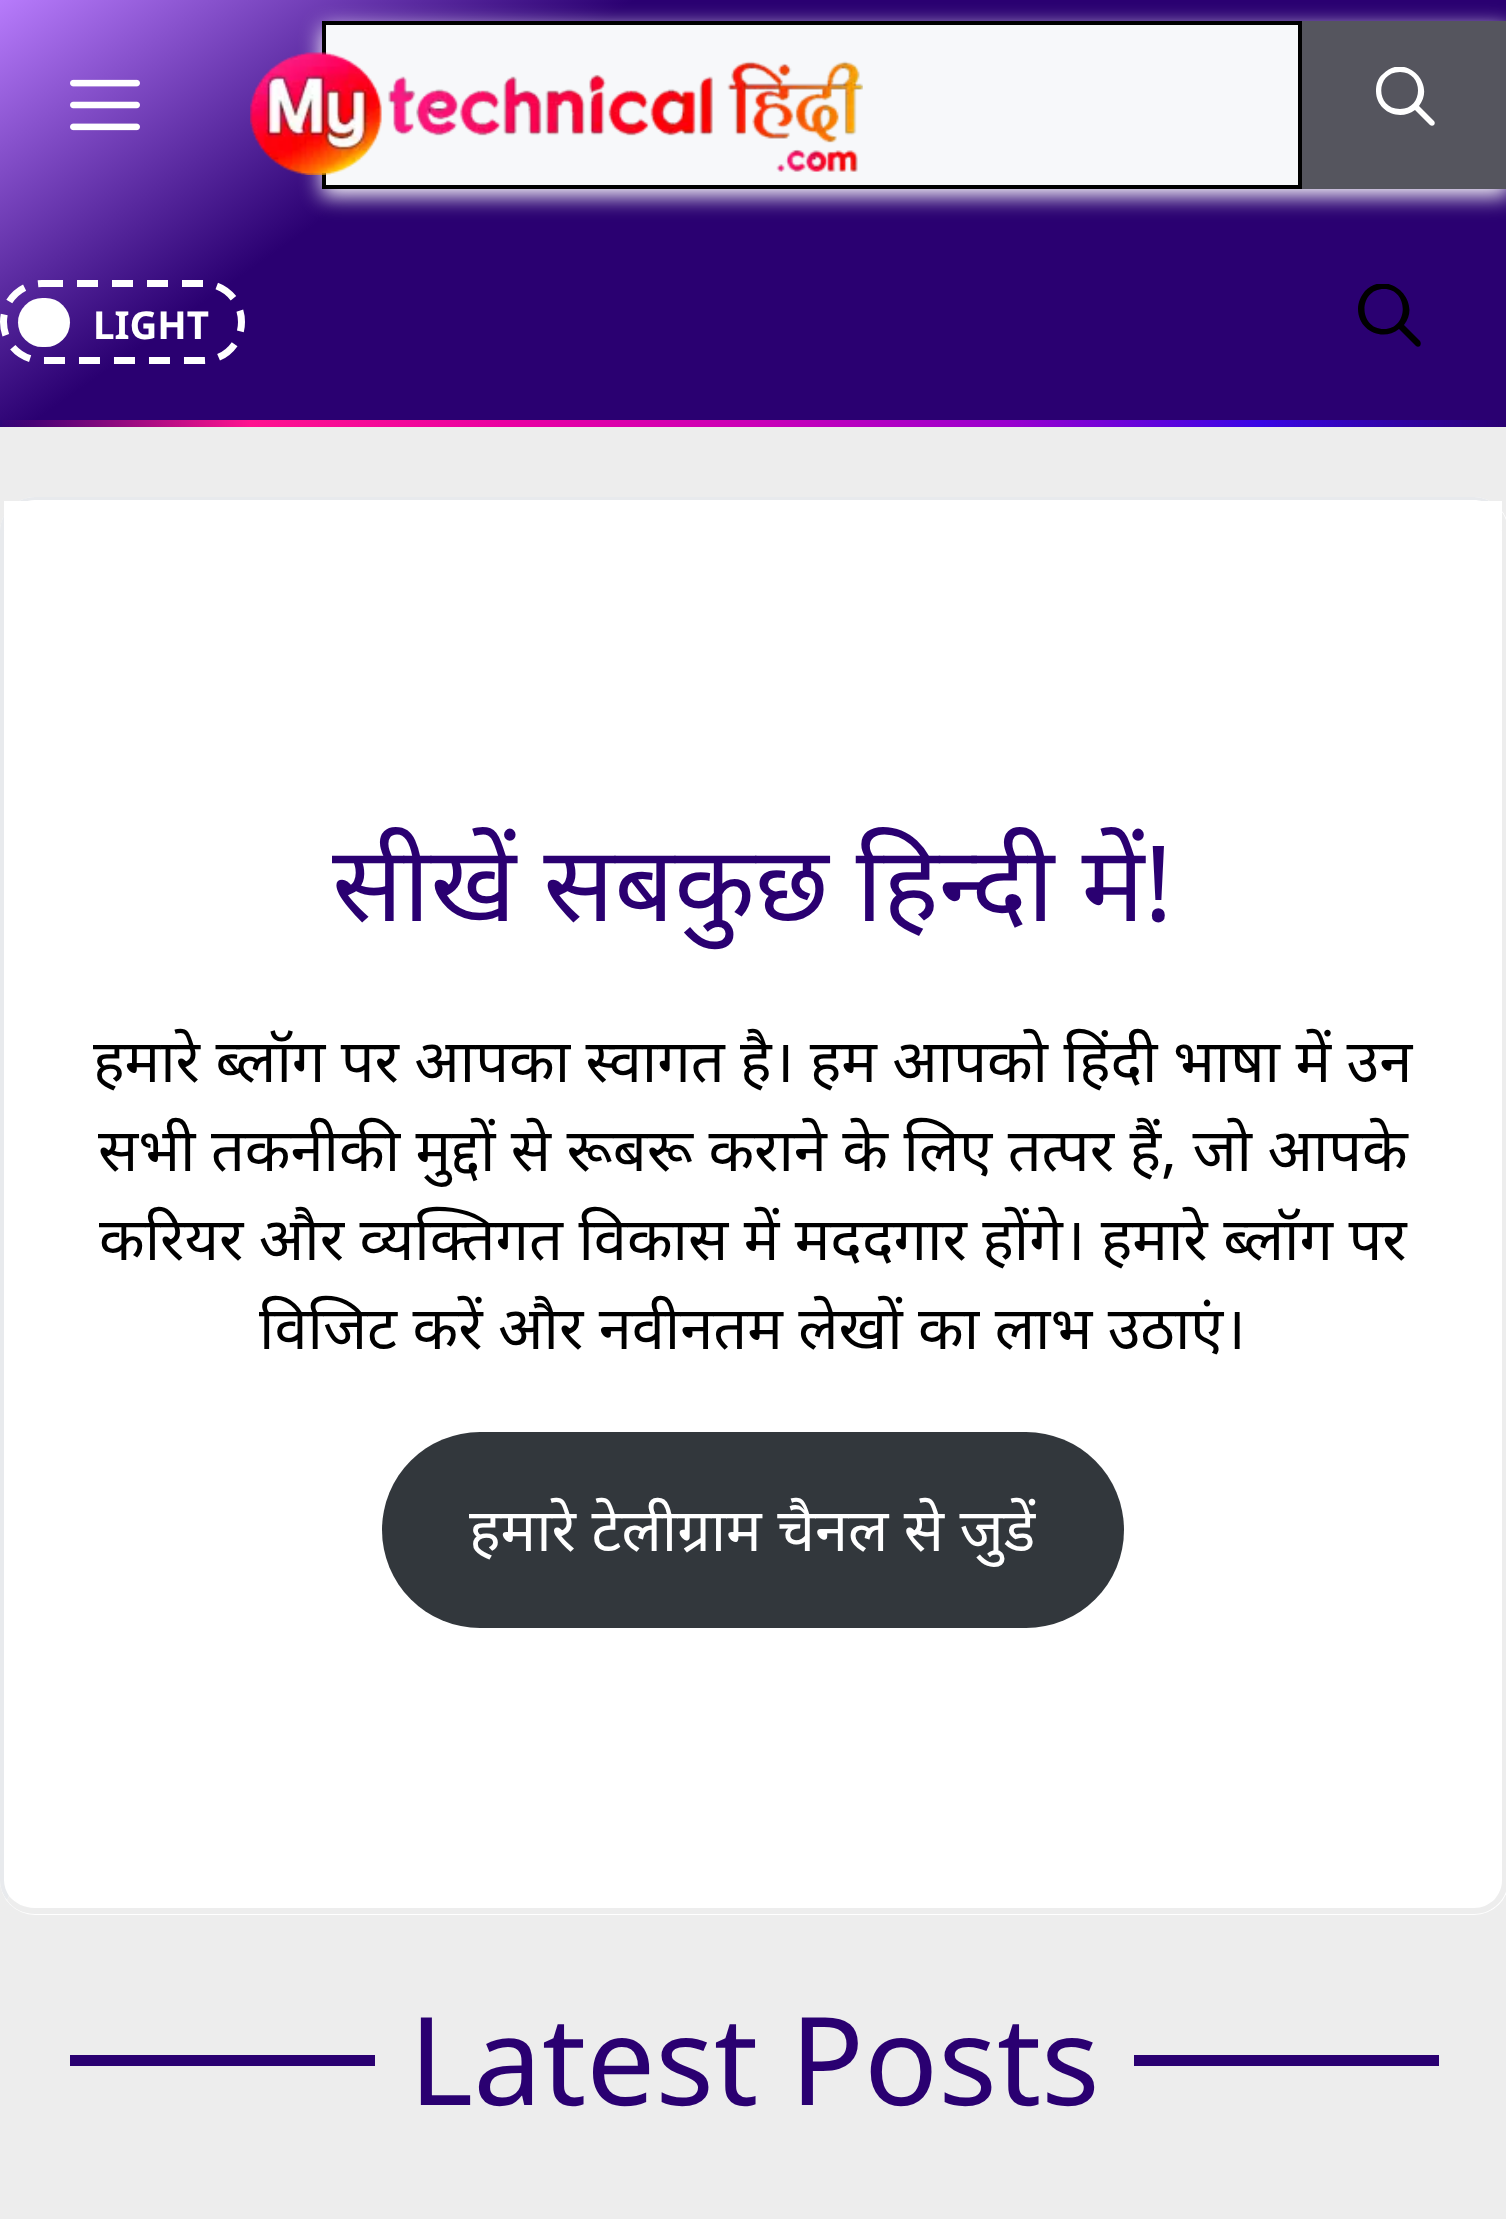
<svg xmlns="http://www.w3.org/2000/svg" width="1506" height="2219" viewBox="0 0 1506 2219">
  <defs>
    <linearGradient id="g1" gradientUnits="userSpaceOnUse" x1="406" y1="-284" x2="1103" y2="711"><stop offset="0" stop-color="#b77bfb"/><stop offset="0.3" stop-color="#2a0071"/></linearGradient>
    <clipPath id="clip1"><path d="M1376 67h59v59H1376z"/></clipPath>
    <clipPath id="clip2"><path d="M1358 284h63v63H1358z"/></clipPath>
  </defs>
  <rect width="100%" height="100%" fill="#ededed"/>
  <path d="M0 0h1506v427H0z" fill="url(#g1)"/>
  <image x="2" y="420" width="1502" height="7" href="img/1.png"/>
  <path d="M322 28h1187v168H322z" fill="#fff" filter="blur(10.5px)"/>
  <path d="M324 23h976v164H324z" fill="#f7f8fa" stroke="#000" stroke-width="4"/>
  <path d="M1302 21h204v168H1302z" fill="#55555e"/>
  <g clip-path="url(#clip1)">
    <path d="M1400 72C1375 72 1375 109 1400 109C1424 109 1424 72 1400 72ZM1376 91C1376 84 1378 78 1383 74C1404 52 1437 83 1419 106L1434 121C1435 122 1435 124 1434 125C1433 126 1431 126 1430 125L1415 110C1399 122 1376 111 1376 91Z" fill="#fff"/>
  </g>
  <image x="70" y="79" width="70" height="52" href="img/2.png"/>
  <image x="250" y="52" width="613" height="123" href="img/3.png"/>
  <path d="M42 283.5H203C224.5 283.5 241.5 300.5 241.5 322C241.5 343.5 224.5 360.5 203 360.5H42C20.5 360.5 3.5 343.5 3.5 322C3.5 300.5 20.5 283.5 42 283.5Z" fill="none" stroke="#fff" stroke-width="7" stroke-dasharray="21 14"/>
  <rect x="18" y="298" width="52" height="49" rx="24.5" fill="#fff"/>
  <g clip-path="url(#clip2)">
    <path d="M1384 289C1358 289 1358 329 1384 329C1409 329 1409 289 1384 289ZM1358 309C1358 302 1361 296 1365 291C1388 268 1423 301 1404 325L1420 341C1421 343 1421 344 1420 346C1419 347 1417 347 1416 346L1399 329C1383 342 1358 331 1358 309Z" fill="#000" fill-rule="evenodd"/>
  </g>
  <rect y="497" width="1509" height="1418" rx="35" fill="#fff"/>
  <path d="M35 497C26 497 17 501 10 507L13 510C19 504 26 500 35 500H1474C1480 500 1486 502 1490 506L1494 504C1489 500 1482 497 1474 497Z" fill="#e8eaed"/>
  <path d="M1494 504C1503 510 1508 521 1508 532V1880C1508 1890 1504 1898 1498 1904L1494 1900C1499 1894 1502 1888 1502 1880V532C1502 522 1497 512 1490 506Z" fill="#00000012"/>
  <path d="M1498 1904C1492 1910 1484 1914 1474 1914H35C24 1914 13 1909 7 1900L9 1896C15 1903 24 1908 35 1908H1474C1482 1908 1488 1905 1494 1900Z" fill="#00000012"/>
  <path d="M0 532V1880C0 1888 3 1895 7 1900L9 1896C6 1891 4 1886 4 1880V532C4 524 7 516 13 510L10 507C4 514 0 522 0 532Z" fill="#e8eaed"/>
  <path d="M4 501h1498v29H4z" fill="#fff"/>
  <rect x="382" y="1432" width="742" height="196" rx="98" fill="#32373c"/>
  <path d="M70 2055h305v11H70z" fill="#2a0071"/>
  <path d="M1134 2055h305v11H1134z" fill="#2a0071"/>
  <text x="93" y="339" font-family="Noto Sans" font-size="38.5" font-weight="bold" fill="#fff">LIGHT</text>
  <text x="332" y="921" font-family="Noto Sans" font-size="105" fill="#2a0071">सीखें सबकुछ हिन्दी में!</text>
  <g font-family="Noto Sans" font-size="59.5" fill="#000">
    <text x="93" y="1082">हमारे ब्लॉग पर आपका स्वागत है। हम आपको हिंदी भाषा में उन</text>
    <text x="98" y="1171">सभी तकनीकी मुद्दों से रूबरू कराने के लिए तत्पर हैं, जो आपके</text>
    <text x="99" y="1260">करियर और व्यक्तिगत विकास में मददगार होंगे। हमारे ब्लॉग पर</text>
    <text x="259" y="1349">विजिट करें और नवीनतम लेखों का लाभ उठाएं।</text>
  </g>
  <text x="469" y="1551" font-family="Noto Sans" font-size="59.5" fill="#fff">हमारे टेलीग्राम चैनल से जुडें</text>
  <text x="409" y="2105" font-family="Noto Sans" font-size="122.5" fill="#2a0071">Latest Posts</text>
</svg>
